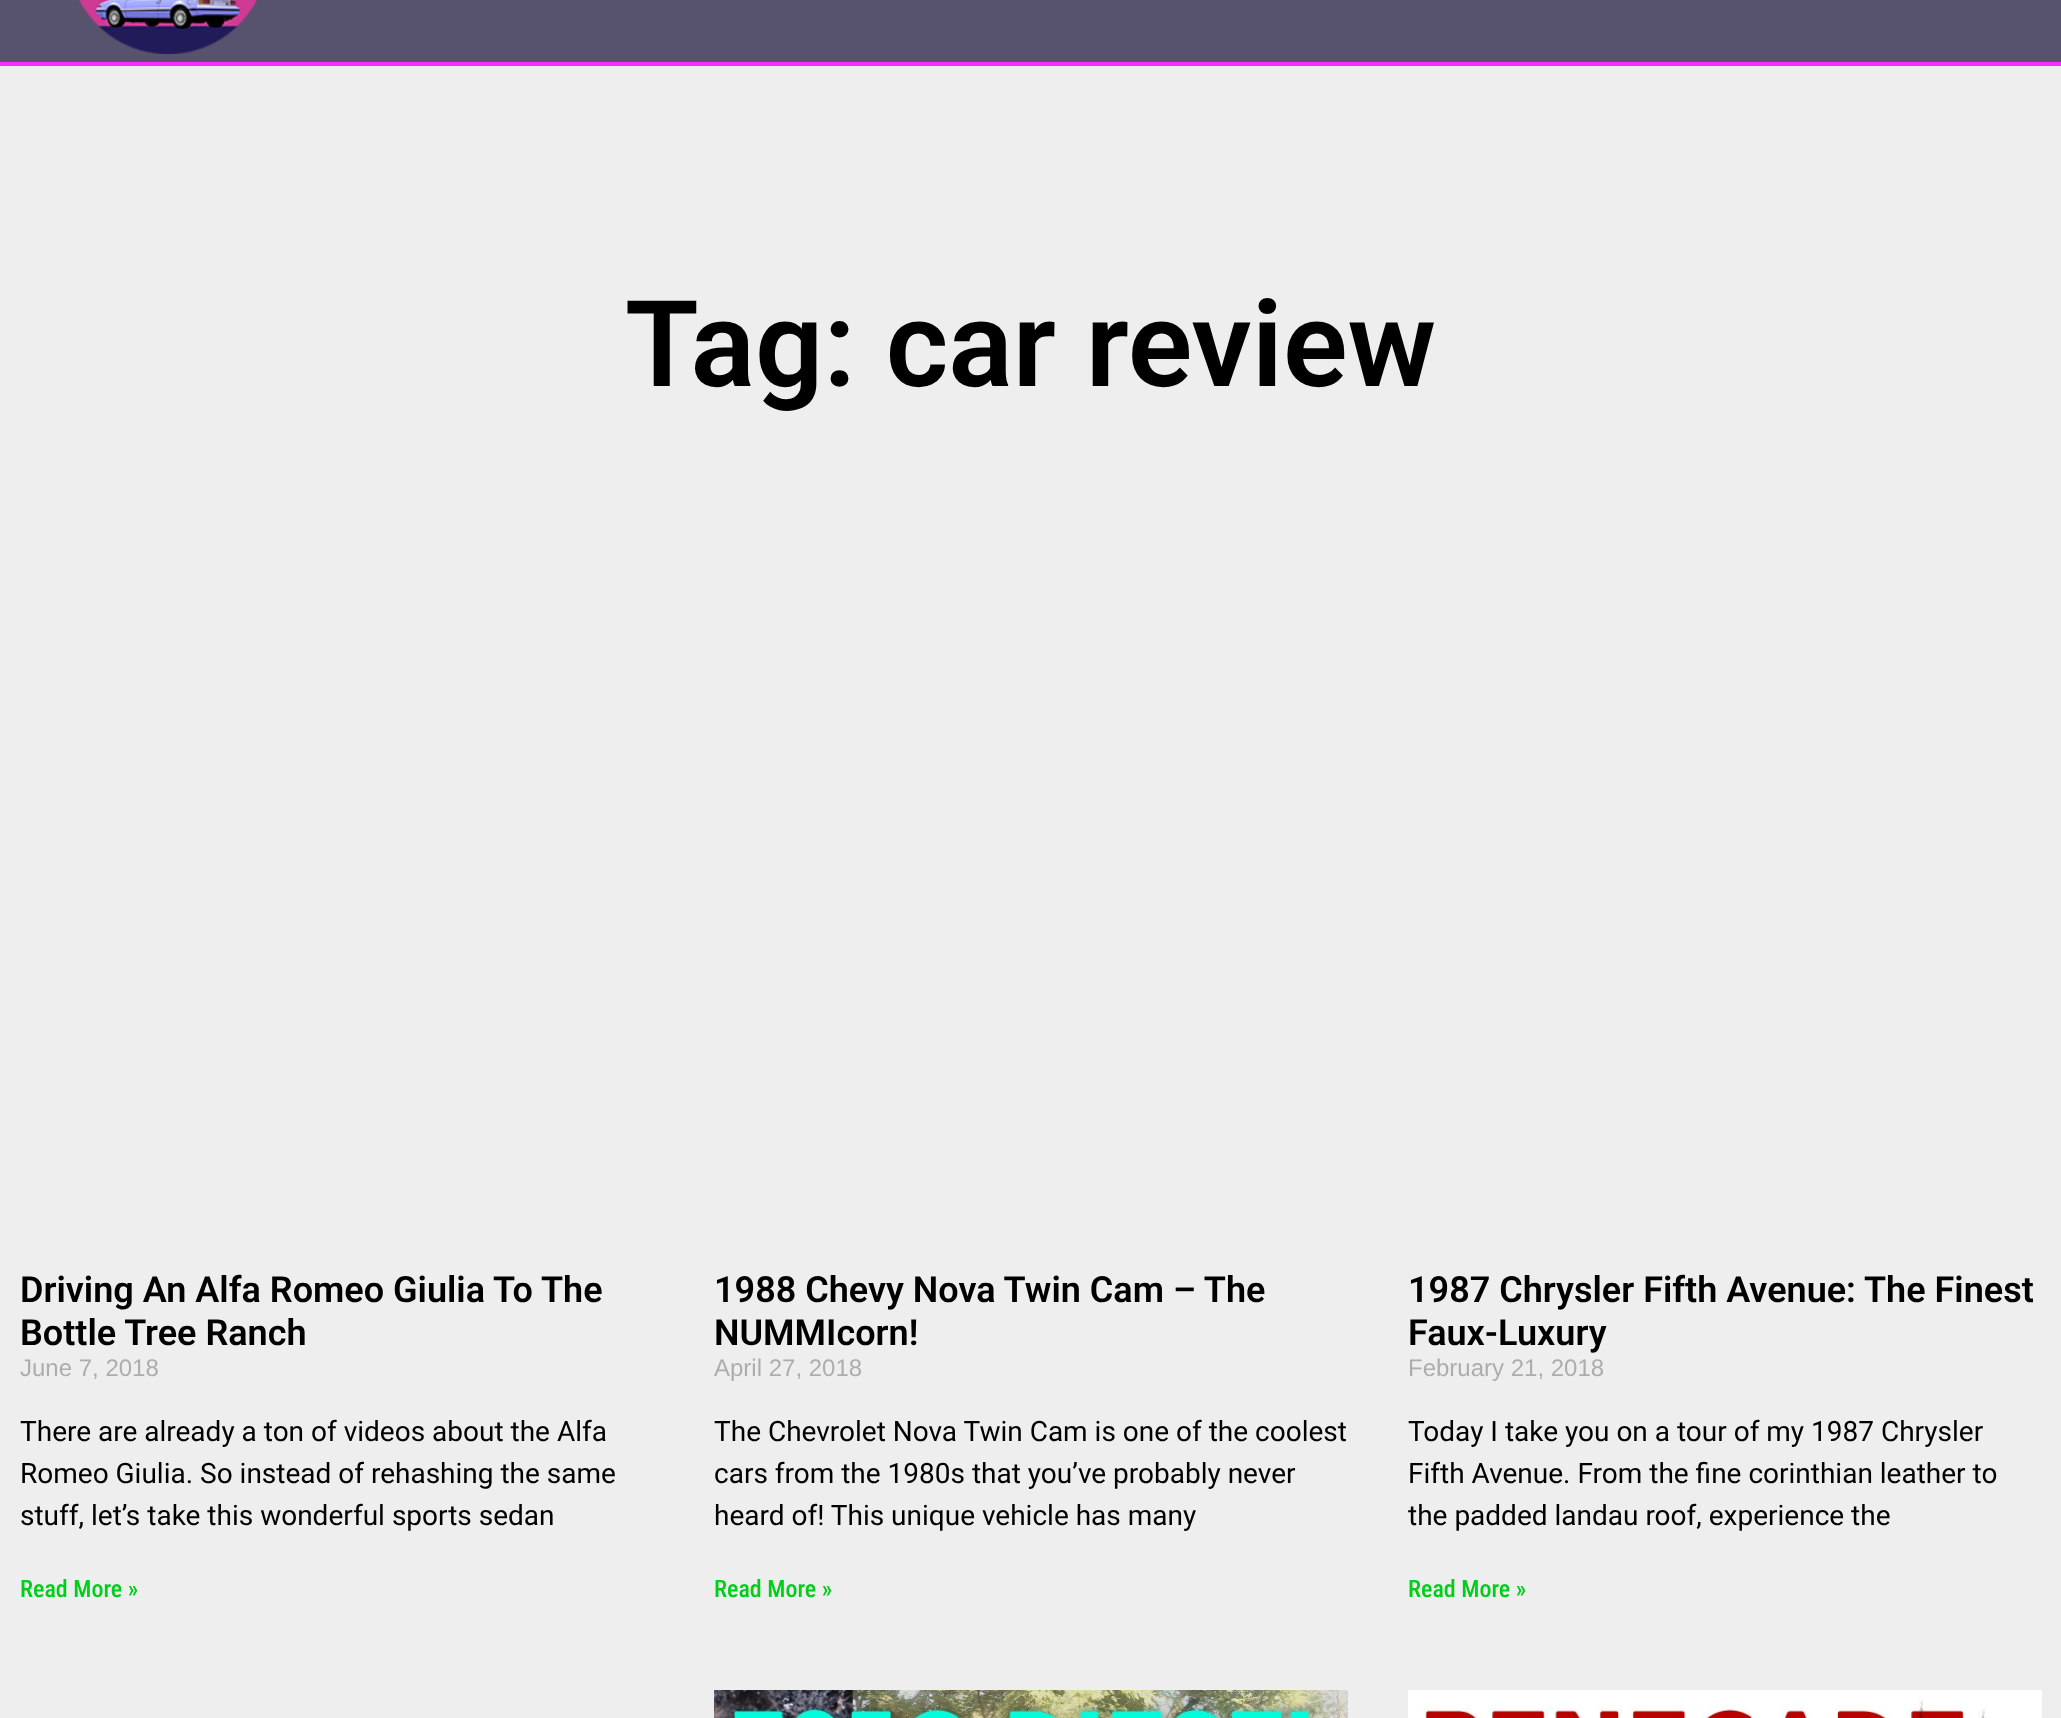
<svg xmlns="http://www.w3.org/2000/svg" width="2061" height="1718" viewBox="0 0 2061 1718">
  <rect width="100%" height="100%" fill="#57526d"/>
  <path d="M0 62h2061v4H0z" fill="#f92dff"/>
  <image x="78" y="0" width="180" height="54" href="img/1.png"/>
  <path d="M0 66h2061v1652H0z" fill="#eee"/>
  <image x="714" y="1690" width="634" height="28" href="img/2.png"/>
  <image x="1408" y="1690" width="634" height="28" href="img/3.png"/>
  <text x="625" y="386" font-family="Roboto" font-size="120" font-weight="600" fill="#000">Tag: car review</text>
  <g font-family="Roboto" font-size="36" font-weight="600" fill="#000">
    <text x="20" y="1302">Driving An Alfa Romeo Giulia To The</text>
    <text x="20" y="1345">Bottle Tree Ranch</text>
  </g>
  <text x="20" y="1376" font-family="Liberation Sans" font-size="24" fill="#adadad">June 7, 2018</text>
  <g font-family="Roboto" font-size="28" fill="#000">
    <text x="20" y="1441">There are already a ton of videos about the Alfa</text>
    <text x="20" y="1483">Romeo Giulia. So instead of rehashing the same</text>
    <text x="20" y="1525">stuff, let’s take this wonderful sports sedan</text>
  </g>
  <text x="20" y="1597" font-family="Roboto Condensed" font-size="24" font-weight="500" fill="#00ce1b">Read More »</text>
  <g font-family="Roboto" font-size="36" font-weight="600" fill="#000">
    <text x="714" y="1302">1988 Chevy Nova Twin Cam – The</text>
    <text x="714" y="1345">NUMMIcorn!</text>
  </g>
  <text x="714" y="1376" font-family="Liberation Sans" font-size="24" fill="#adadad">April 27, 2018</text>
  <g font-family="Roboto" font-size="28" fill="#000">
    <text x="714" y="1441">The Chevrolet Nova Twin Cam is one of the coolest</text>
    <text x="714" y="1483">cars from the 1980s that you’ve probably never</text>
    <text x="714" y="1525">heard of! This unique vehicle has many</text>
  </g>
  <text x="714" y="1597" font-family="Roboto Condensed" font-size="24" font-weight="500" fill="#00ce1b">Read More »</text>
  <g font-family="Roboto" font-size="36" font-weight="600" fill="#000">
    <text x="1408" y="1302">1987 Chrysler Fifth Avenue: The Finest</text>
    <text x="1408" y="1345">Faux-Luxury</text>
  </g>
  <text x="1408" y="1376" font-family="Liberation Sans" font-size="24" fill="#adadad">February 21, 2018</text>
  <g font-family="Roboto" font-size="28" fill="#000">
    <text x="1408" y="1441">Today I take you on a tour of my 1987 Chrysler</text>
    <text x="1408" y="1483">Fifth Avenue. From the fine corinthian leather to</text>
    <text x="1408" y="1525">the padded landau roof, experience the</text>
  </g>
  <text x="1408" y="1597" font-family="Roboto Condensed" font-size="24" font-weight="500" fill="#00ce1b">Read More »</text>
</svg>
